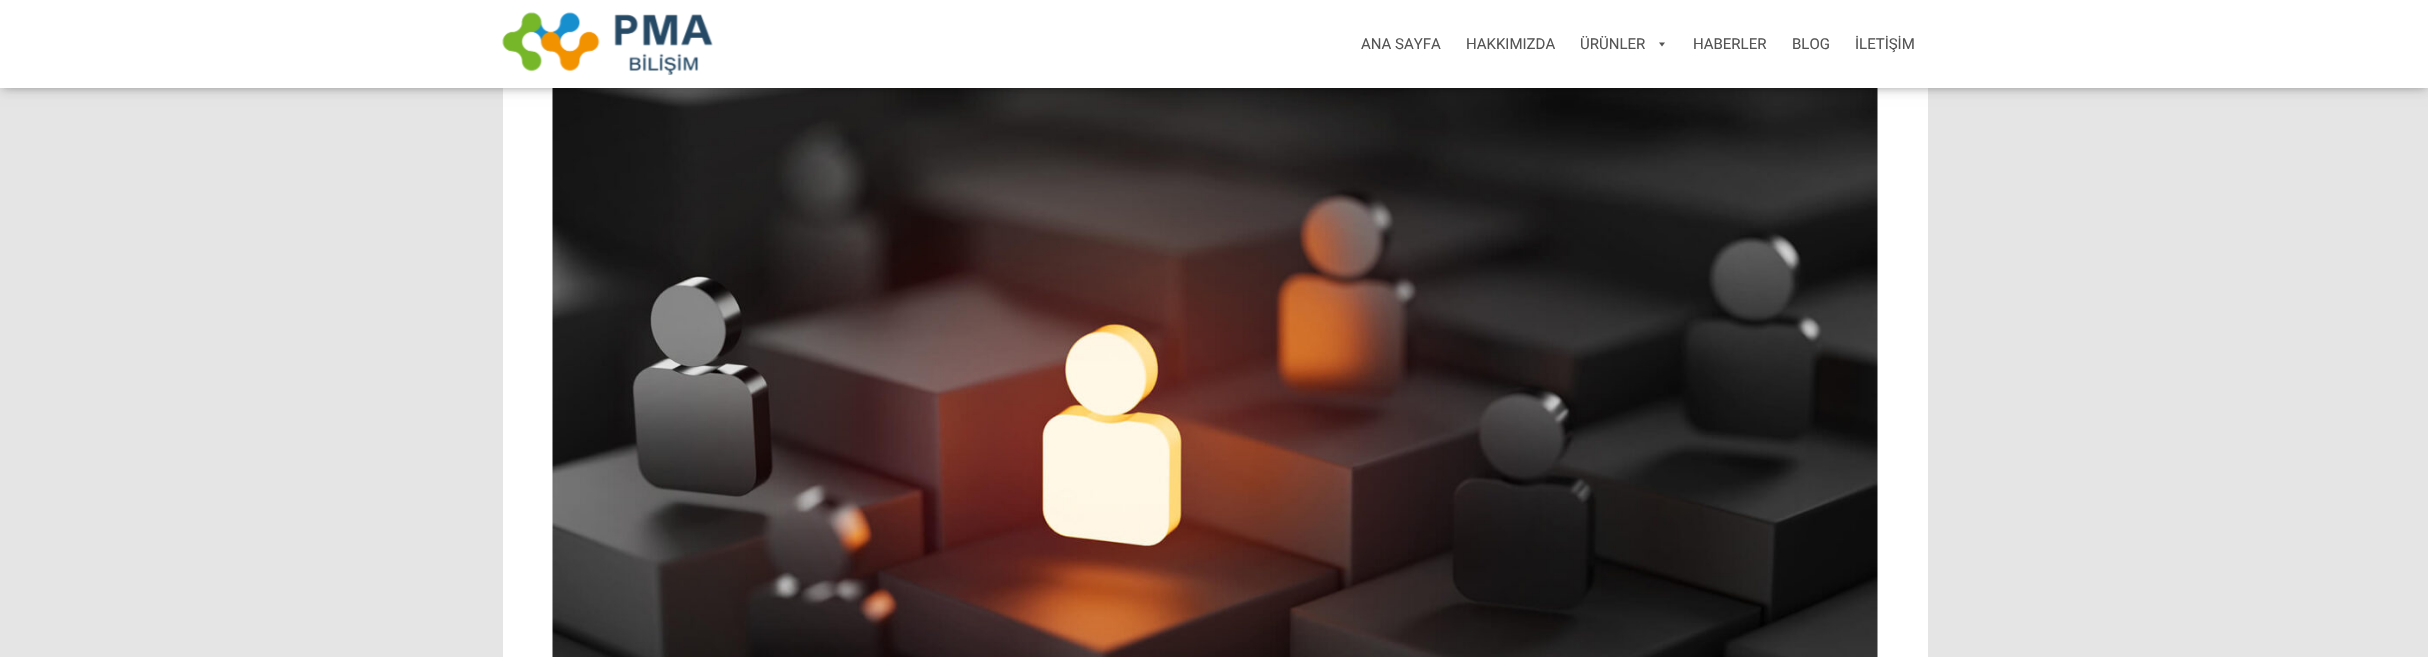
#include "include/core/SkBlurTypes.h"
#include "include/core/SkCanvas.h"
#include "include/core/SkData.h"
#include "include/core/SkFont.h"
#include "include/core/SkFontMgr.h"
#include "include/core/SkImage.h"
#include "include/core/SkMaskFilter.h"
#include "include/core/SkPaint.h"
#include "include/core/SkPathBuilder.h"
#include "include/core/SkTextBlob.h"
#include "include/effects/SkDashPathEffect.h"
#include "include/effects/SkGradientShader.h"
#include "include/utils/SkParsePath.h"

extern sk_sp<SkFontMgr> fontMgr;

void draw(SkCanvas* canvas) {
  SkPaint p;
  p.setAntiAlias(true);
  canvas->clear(SkColorSetRGB(229, 229, 229));
  p.setColor(SK_ColorWHITE);
  canvas->drawRect(SkRect::MakeLTRB(503, 88, 1928, 657), p);
  canvas->drawImageRect(SkImages::DeferredFromEncodedData(SkData::MakeFromFileName("images/2.png")), SkRect::MakeLTRB(552, 88, 1878, 657), SkSamplingOptions());
  p.setColor(SkColorSetARGB(26, 0, 0, 0));
  p.setMaskFilter(SkMaskFilter::MakeBlur(kNormal_SkBlurStyle, 3));
  canvas->drawRect(SkRect::MakeLTRB(3, 8, 2426, 90), p);
  p.setMaskFilter(nullptr);
  p.setColor(SkColorSetARGB(31, 0, 0, 0));
  p.setMaskFilter(SkMaskFilter::MakeBlur(kNormal_SkBlurStyle, 6));
  canvas->drawRect(SkRect::MakeLTRB(0, 1, 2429, 89), p);
  p.setMaskFilter(nullptr);
  p.setColor(SkColorSetARGB(107, 0, 0, 0));
  p.setMaskFilter(SkMaskFilter::MakeBlur(kNormal_SkBlurStyle, 6));
  canvas->drawRect(SkRect::MakeLTRB(8, 9, 2421, 81), p);
  p.setMaskFilter(nullptr);
  p.setColor(SK_ColorWHITE);
  canvas->drawRect(SkRect::MakeLTRB(0, 0, 2428, 88), p);
  canvas->drawImageRect(SkImages::DeferredFromEncodedData(SkData::MakeFromFileName("images/1.png")), SkRect::MakeLTRB(502, 12, 713, 75), SkSamplingOptions());
  p.setColor(SkColorSetRGB(85, 85, 85));
  canvas->drawPath(SkPathBuilder().moveTo(1665, 42.5f).lineTo(1662, 46.5f).lineTo(1659, 42.5f).close().detach(), p);
  SkFont font1(fontMgr->matchFamilyStyle("Roboto", SkFontStyle::Normal()), 15);
  font1.setSubpixel(true);
  canvas->drawString("ANA SAYFA", 1361, 49, font1, p);
  canvas->drawString("HAKKIMIZDA", 1466, 49, font1, p);
  canvas->drawString("ÜRÜNLER", 1580, 49, font1, p);
  canvas->drawString("HABERLER", 1693, 49, font1, p);
  canvas->drawString("BLOG", 1792, 49, font1, p);
  canvas->drawString("İLETİŞİM", 1855, 49, font1, p);
}
